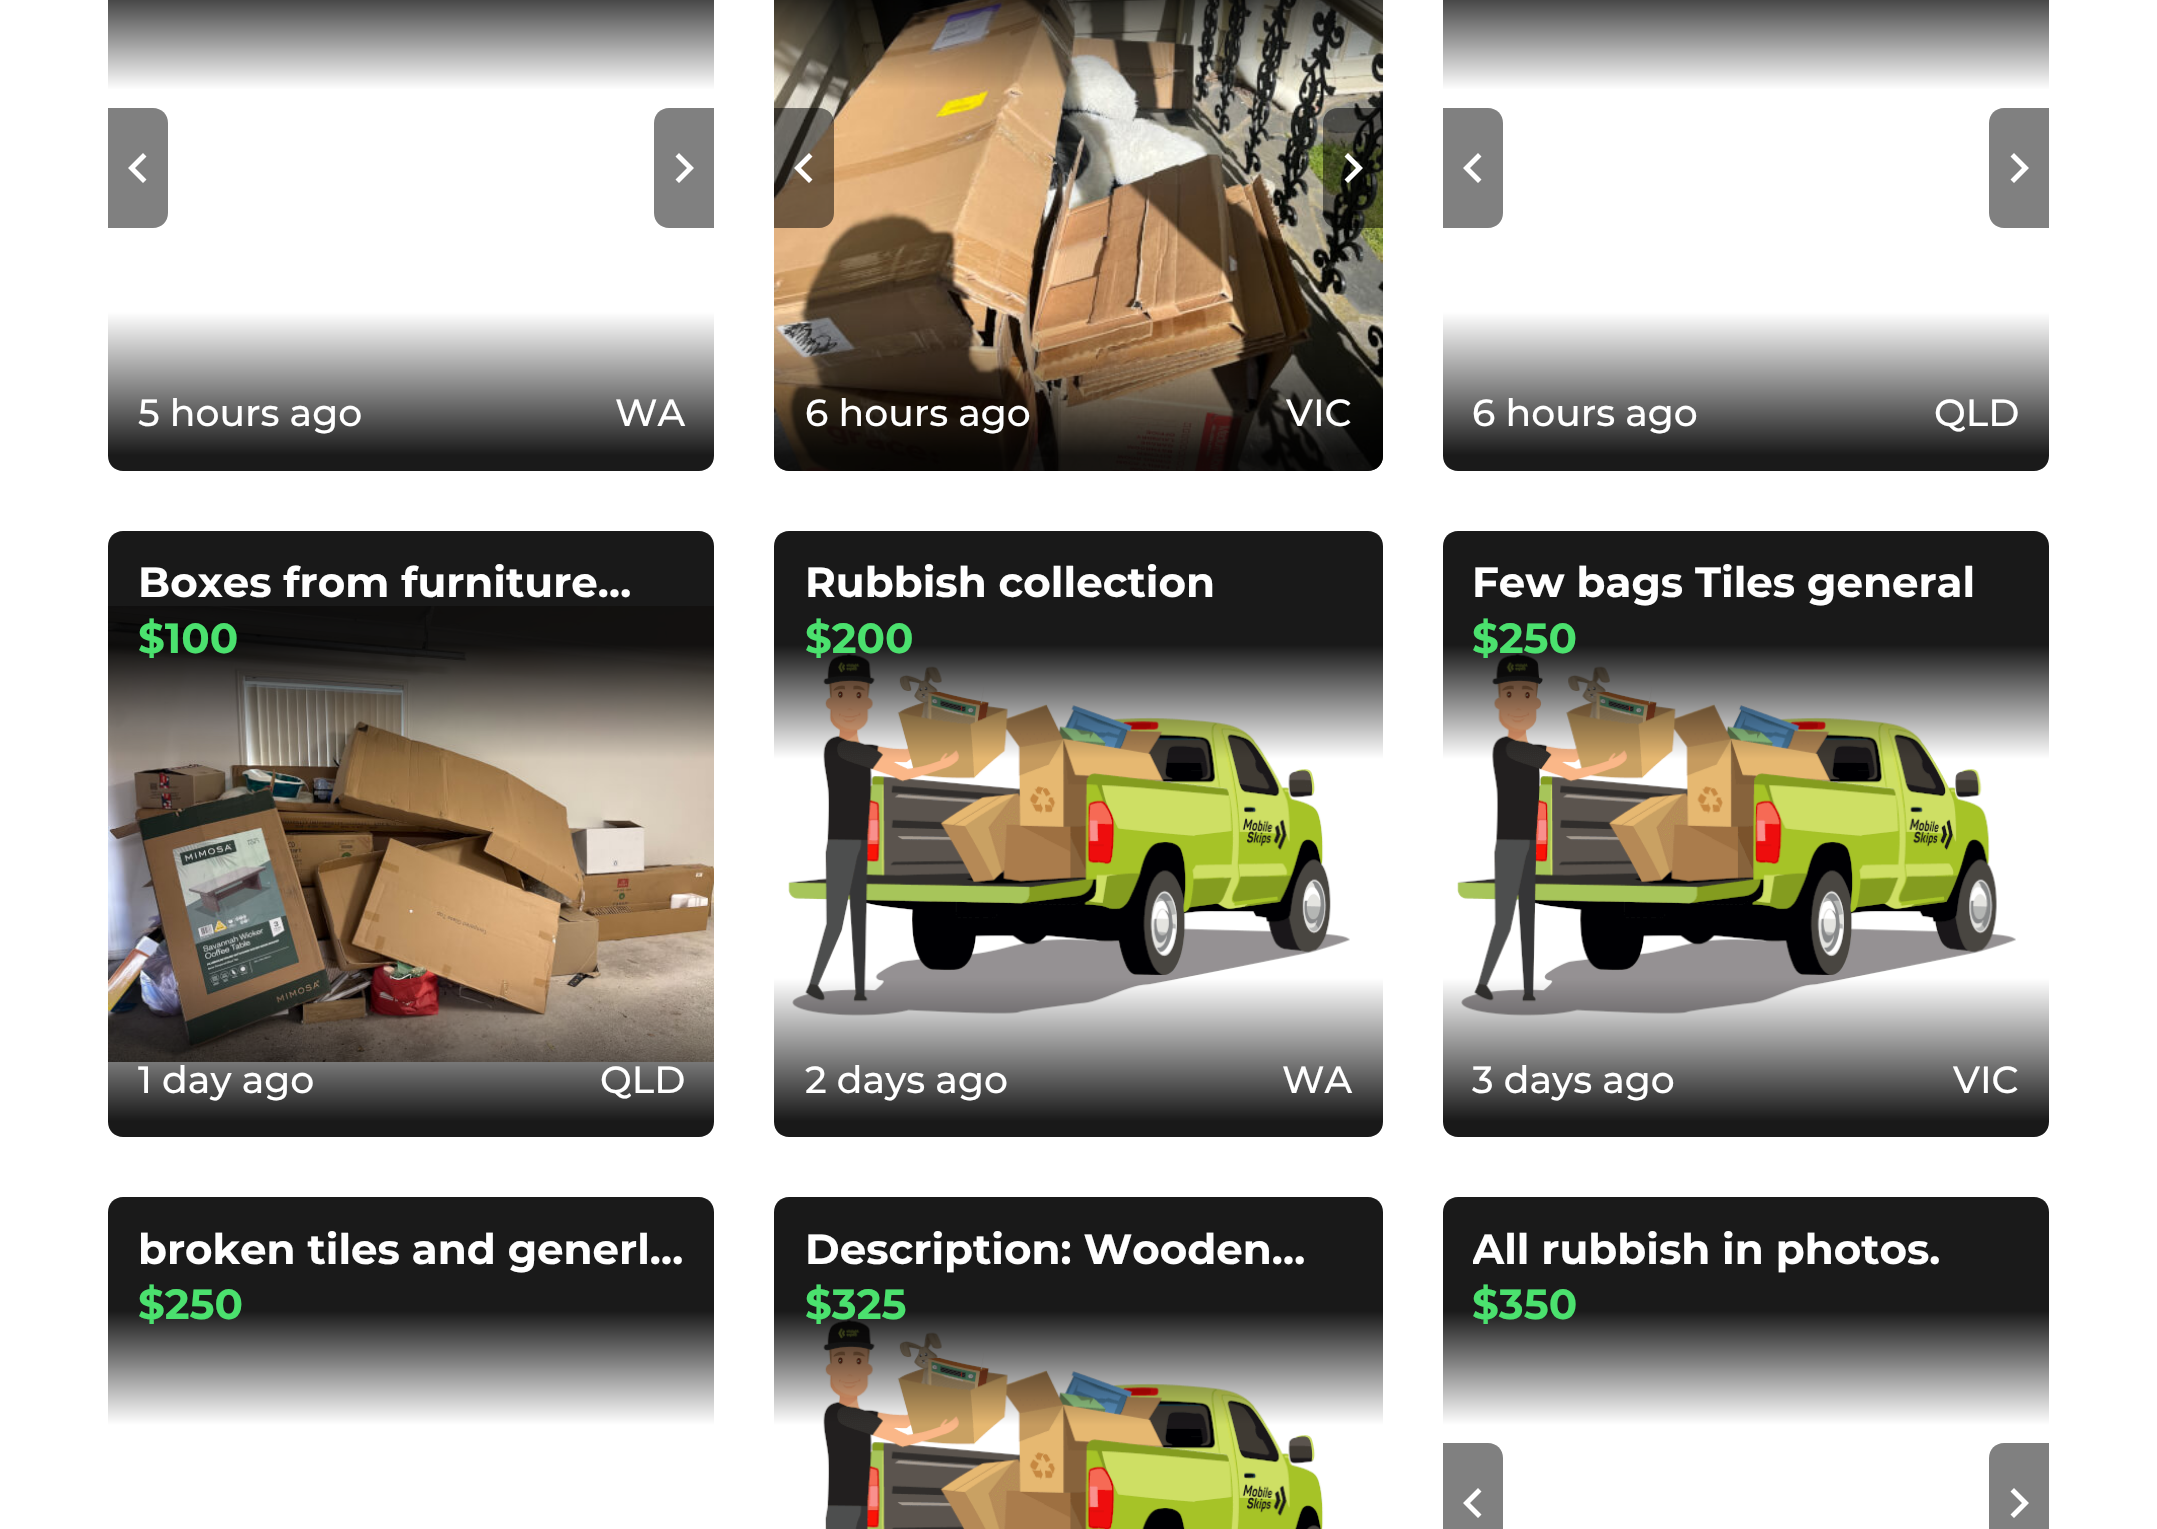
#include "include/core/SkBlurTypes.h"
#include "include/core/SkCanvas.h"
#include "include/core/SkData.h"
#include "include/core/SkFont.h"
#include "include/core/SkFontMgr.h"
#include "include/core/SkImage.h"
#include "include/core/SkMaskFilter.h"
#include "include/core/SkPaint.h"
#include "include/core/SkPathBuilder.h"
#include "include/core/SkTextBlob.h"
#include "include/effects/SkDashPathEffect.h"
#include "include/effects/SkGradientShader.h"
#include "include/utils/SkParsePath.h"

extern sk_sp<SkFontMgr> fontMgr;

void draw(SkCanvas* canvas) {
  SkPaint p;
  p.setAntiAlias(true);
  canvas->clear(SK_ColorWHITE);
  {
    const SkColor colors[] = {SkColorSetRGB(26, 26, 26), SK_ColorWHITE};
    const float stops[] = {0.5f, 1};
    const SkPoint ends[] = {{411, -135}, {411, 90}};
    p.setShader(SkGradientShader::MakeLinear(ends, colors, stops, 2, SkTileMode::kClamp));
    p.setAlpha(255);
  }
  canvas->drawRect(SkRect::MakeLTRB(108, 0, 714, 89), p);
  p.setShader(nullptr);
  p.setColor(SkColorSetRGB(128, 128, 128));
  canvas->drawPath(SkPathBuilder().moveTo(108, 108).lineTo(153, 108).cubicTo(161.5f, 108, 168, 114.5f, 168, 123).lineTo(168, 213).cubicTo(168, 221.5f, 161.5f, 228, 153, 228).lineTo(108, 228).close().detach(), p);
  p.setColor(SK_ColorWHITE);
  canvas->drawPath(SkPathBuilder().moveTo(146.5f, 156.5f).lineTo(143, 153).lineTo(128, 168).lineTo(143, 183).lineTo(146.5f, 179.5f).lineTo(135, 168).close().detach(), p);
  p.setColor(SkColorSetRGB(128, 128, 128));
  canvas->drawPath(SkPathBuilder().moveTo(669, 108).lineTo(714, 108).lineTo(714, 228).lineTo(669, 228).cubicTo(660.5f, 228, 654, 221.5f, 654, 213).lineTo(654, 123).cubicTo(654, 114.5f, 660.5f, 108, 669, 108).close().detach(), p);
  p.setColor(SK_ColorWHITE);
  canvas->drawPath(SkPathBuilder().moveTo(679, 153).lineTo(675.5f, 156.5f).lineTo(687, 168).lineTo(675.5f, 179.5f).lineTo(679, 183).lineTo(694, 168).close().detach(), p);
  {
    const SkColor colors[] = {SkColorSetRGB(26, 26, 26), SK_ColorWHITE};
    const float stops[] = {0.1f, 1};
    const SkPoint ends[] = {{411, 471}, {411, 312}};
    p.setShader(SkGradientShader::MakeLinear(ends, colors, stops, 2, SkTileMode::kClamp));
    p.setAlpha(255);
  }
  canvas->drawPath(SkPathBuilder().moveTo(108, 312).lineTo(714, 312).lineTo(714, 456).cubicTo(714, 464.5f, 707.5f, 471, 699, 471).lineTo(123, 471).cubicTo(114.5f, 471, 108, 464.5f, 108, 456).close().detach(), p);
  canvas->drawImageRect(SkImages::DeferredFromEncodedData(SkData::MakeFromFileName("images/1.png")), SkRect::MakeLTRB(774, 0, 1383, 471), SkSamplingOptions());
  p.setShader(nullptr);
  p.setColor(SkColorSetARGB(128, 0, 0, 0));
  canvas->drawPath(SkPathBuilder().moveTo(774, 108).lineTo(819, 108).cubicTo(827.5f, 108, 834, 114.5f, 834, 123).lineTo(834, 213).cubicTo(834, 221.5f, 827.5f, 228, 819, 228).lineTo(774, 228).close().detach(), p);
  p.setColor(SK_ColorWHITE);
  canvas->drawPath(SkPathBuilder().moveTo(812.5f, 156.5f).lineTo(809, 153).lineTo(794, 168).lineTo(809, 183).lineTo(812.5f, 179.5f).lineTo(801, 168).close().detach(), p);
  p.setColor(SkColorSetARGB(128, 0, 0, 0));
  canvas->drawPath(SkPathBuilder().moveTo(1338, 108).lineTo(1383, 108).lineTo(1383, 228).lineTo(1338, 228).cubicTo(1329.5f, 228, 1323, 221.5f, 1323, 213).lineTo(1323, 123).cubicTo(1323, 114.5f, 1329.5f, 108, 1338, 108).close().detach(), p);
  p.setColor(SK_ColorWHITE);
  canvas->drawPath(SkPathBuilder().moveTo(1348, 153).lineTo(1344.5f, 156.5f).lineTo(1356, 168).lineTo(1344.5f, 179.5f).lineTo(1348, 183).lineTo(1363, 168).close().detach(), p);
  {
    const SkColor colors[] = {SkColorSetARGB(230, 0, 0, 0), SkColorSetARGB(0, 0, 0, 0)};
    const float stops[] = {0.1f, 1};
    const SkPoint ends[] = {{1079, 471}, {1079, 312}};
    p.setShader(SkGradientShader::MakeLinear(ends, colors, stops, 2, SkTileMode::kClamp));
    p.setAlpha(255);
  }
  canvas->drawPath(SkPathBuilder().moveTo(774, 312).lineTo(1383, 312).lineTo(1383, 456).cubicTo(1383, 464.5f, 1376.5f, 471, 1368, 471).lineTo(789, 471).cubicTo(780.5f, 471, 774, 464.5f, 774, 456).close().detach(), p);
  {
    const SkColor colors[] = {SkColorSetRGB(26, 26, 26), SK_ColorWHITE};
    const float stops[] = {0.5f, 1};
    const SkPoint ends[] = {{1746, -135}, {1746, 90}};
    p.setShader(SkGradientShader::MakeLinear(ends, colors, stops, 2, SkTileMode::kClamp));
    p.setAlpha(255);
  }
  canvas->drawRect(SkRect::MakeLTRB(1443, 0, 2049, 89), p);
  p.setShader(nullptr);
  p.setColor(SkColorSetRGB(128, 128, 128));
  canvas->drawPath(SkPathBuilder().moveTo(1443, 108).lineTo(1488, 108).cubicTo(1496.5f, 108, 1503, 114.5f, 1503, 123).lineTo(1503, 213).cubicTo(1503, 221.5f, 1496.5f, 228, 1488, 228).lineTo(1443, 228).close().detach(), p);
  p.setColor(SK_ColorWHITE);
  canvas->drawPath(SkPathBuilder().moveTo(1481.5f, 156.5f).lineTo(1478, 153).lineTo(1463, 168).lineTo(1478, 183).lineTo(1481.5f, 179.5f).lineTo(1470, 168).close().detach(), p);
  p.setColor(SkColorSetRGB(128, 128, 128));
  canvas->drawPath(SkPathBuilder().moveTo(2004, 108).lineTo(2049, 108).lineTo(2049, 228).lineTo(2004, 228).cubicTo(1995.5f, 228, 1989, 221.5f, 1989, 213).lineTo(1989, 123).cubicTo(1989, 114.5f, 1995.5f, 108, 2004, 108).close().detach(), p);
  p.setColor(SK_ColorWHITE);
  canvas->drawPath(SkPathBuilder().moveTo(2014, 153).lineTo(2010.5f, 156.5f).lineTo(2022, 168).lineTo(2010.5f, 179.5f).lineTo(2014, 183).lineTo(2029, 168).close().detach(), p);
  {
    const SkColor colors[] = {SkColorSetRGB(26, 26, 26), SK_ColorWHITE};
    const float stops[] = {0.1f, 1};
    const SkPoint ends[] = {{1746, 471}, {1746, 312}};
    p.setShader(SkGradientShader::MakeLinear(ends, colors, stops, 2, SkTileMode::kClamp));
    p.setAlpha(255);
  }
  canvas->drawPath(SkPathBuilder().moveTo(1443, 312).lineTo(2049, 312).lineTo(2049, 456).cubicTo(2049, 464.5f, 2042.5f, 471, 2034, 471).lineTo(1458, 471).cubicTo(1449.5f, 471, 1443, 464.5f, 1443, 456).close().detach(), p);
  canvas->drawImageRect(SkImages::DeferredFromEncodedData(SkData::MakeFromFileName("images/2.png")), SkRect::MakeLTRB(108, 606, 714, 1062), SkSamplingOptions());
  {
    const SkColor colors[] = {SkColorSetARGB(230, 0, 0, 0), SkColorSetARGB(0, 0, 0, 0)};
    const float stops[] = {0.5f, 1};
    const SkPoint ends[] = {{411, 531}, {411, 759}};
    p.setShader(SkGradientShader::MakeLinear(ends, colors, stops, 2, SkTileMode::kClamp));
    p.setAlpha(255);
  }
  canvas->drawPath(SkPathBuilder().moveTo(123, 531).lineTo(699, 531).cubicTo(707.5f, 531, 714, 537.5f, 714, 546).lineTo(714, 759).lineTo(108, 759).lineTo(108, 546).cubicTo(108, 537.5f, 114.5f, 531, 123, 531).close().detach(), p);
  {
    const SkColor colors[] = {SkColorSetARGB(230, 0, 0, 0), SkColorSetARGB(0, 0, 0, 0)};
    const float stops[] = {0.1f, 1};
    const SkPoint ends[] = {{411, 1137}, {411, 978}};
    p.setShader(SkGradientShader::MakeLinear(ends, colors, stops, 2, SkTileMode::kClamp));
    p.setAlpha(255);
  }
  canvas->drawPath(SkPathBuilder().moveTo(108, 978).lineTo(714, 978).lineTo(714, 1122).cubicTo(714, 1130.5f, 707.5f, 1137, 699, 1137).lineTo(123, 1137).cubicTo(114.5f, 1137, 108, 1130.5f, 108, 1122).close().detach(), p);
  canvas->drawImageRect(SkImages::DeferredFromEncodedData(SkData::MakeFromFileName("images/3.png")), SkRect::MakeLTRB(788, 653, 1350, 1016), SkSamplingOptions());
  {
    const SkColor colors[] = {SkColorSetARGB(230, 0, 0, 0), SkColorSetARGB(0, 0, 0, 0)};
    const float stops[] = {0.5f, 1};
    const SkPoint ends[] = {{1079, 531}, {1079, 759}};
    p.setShader(SkGradientShader::MakeLinear(ends, colors, stops, 2, SkTileMode::kClamp));
    p.setAlpha(255);
  }
  canvas->drawPath(SkPathBuilder().moveTo(789, 531).lineTo(1368, 531).cubicTo(1376.5f, 531, 1383, 537.5f, 1383, 546).lineTo(1383, 759).lineTo(774, 759).lineTo(774, 546).cubicTo(774, 537.5f, 780.5f, 531, 789, 531).close().detach(), p);
  {
    const SkColor colors[] = {SkColorSetARGB(230, 0, 0, 0), SkColorSetARGB(0, 0, 0, 0)};
    const float stops[] = {0.1f, 1};
    const SkPoint ends[] = {{1079, 1137}, {1079, 978}};
    p.setShader(SkGradientShader::MakeLinear(ends, colors, stops, 2, SkTileMode::kClamp));
    p.setAlpha(255);
  }
  canvas->drawPath(SkPathBuilder().moveTo(774, 978).lineTo(1383, 978).lineTo(1383, 1122).cubicTo(1383, 1130.5f, 1376.5f, 1137, 1368, 1137).lineTo(789, 1137).cubicTo(780.5f, 1137, 774, 1130.5f, 774, 1122).close().detach(), p);
  canvas->drawImageRect(SkImages::DeferredFromEncodedData(SkData::MakeFromFileName("images/4.png")), SkRect::MakeLTRB(1457, 653, 2016, 1016), SkSamplingOptions());
  {
    const SkColor colors[] = {SkColorSetARGB(230, 0, 0, 0), SkColorSetARGB(0, 0, 0, 0)};
    const float stops[] = {0.5f, 1};
    const SkPoint ends[] = {{1746, 531}, {1746, 759}};
    p.setShader(SkGradientShader::MakeLinear(ends, colors, stops, 2, SkTileMode::kClamp));
    p.setAlpha(255);
  }
  canvas->drawPath(SkPathBuilder().moveTo(1458, 531).lineTo(2034, 531).cubicTo(2042.5f, 531, 2049, 537.5f, 2049, 546).lineTo(2049, 759).lineTo(1443, 759).lineTo(1443, 546).cubicTo(1443, 537.5f, 1449.5f, 531, 1458, 531).close().detach(), p);
  {
    const SkColor colors[] = {SkColorSetARGB(230, 0, 0, 0), SkColorSetARGB(0, 0, 0, 0)};
    const float stops[] = {0.1f, 1};
    const SkPoint ends[] = {{1746, 1137}, {1746, 978}};
    p.setShader(SkGradientShader::MakeLinear(ends, colors, stops, 2, SkTileMode::kClamp));
    p.setAlpha(255);
  }
  canvas->drawPath(SkPathBuilder().moveTo(1443, 978).lineTo(2049, 978).lineTo(2049, 1122).cubicTo(2049, 1130.5f, 2042.5f, 1137, 2034, 1137).lineTo(1458, 1137).cubicTo(1449.5f, 1137, 1443, 1130.5f, 1443, 1122).close().detach(), p);
  {
    const SkColor colors[] = {SkColorSetRGB(26, 26, 26), SK_ColorWHITE};
    const float stops[] = {0.5f, 1};
    const SkPoint ends[] = {{411, 1197}, {411, 1425}};
    p.setShader(SkGradientShader::MakeLinear(ends, colors, stops, 2, SkTileMode::kClamp));
    p.setAlpha(255);
  }
  canvas->drawPath(SkPathBuilder().moveTo(123, 1197).lineTo(699, 1197).cubicTo(707.5f, 1197, 714, 1203.5f, 714, 1212).lineTo(714, 1425).lineTo(108, 1425).lineTo(108, 1212).cubicTo(108, 1203.5f, 114.5f, 1197, 123, 1197).close().detach(), p);
  canvas->drawImageRect(SkImages::DeferredFromEncodedData(SkData::MakeFromFileName("images/5.png")), SkRect::MakeLTRB(823, 1319, 1324, 1529), SkSamplingOptions());
  {
    const SkColor colors[] = {SkColorSetARGB(230, 0, 0, 0), SkColorSetARGB(0, 0, 0, 0)};
    const float stops[] = {0.5f, 1};
    const SkPoint ends[] = {{1079, 1197}, {1079, 1425}};
    p.setShader(SkGradientShader::MakeLinear(ends, colors, stops, 2, SkTileMode::kClamp));
    p.setAlpha(255);
  }
  canvas->drawPath(SkPathBuilder().moveTo(789, 1197).lineTo(1368, 1197).cubicTo(1376.5f, 1197, 1383, 1203.5f, 1383, 1212).lineTo(1383, 1425).lineTo(774, 1425).lineTo(774, 1212).cubicTo(774, 1203.5f, 780.5f, 1197, 789, 1197).close().detach(), p);
  {
    const SkColor colors[] = {SkColorSetRGB(26, 26, 26), SK_ColorWHITE};
    const float stops[] = {0.5f, 1};
    const SkPoint ends[] = {{1746, 1197}, {1746, 1425}};
    p.setShader(SkGradientShader::MakeLinear(ends, colors, stops, 2, SkTileMode::kClamp));
    p.setAlpha(255);
  }
  canvas->drawPath(SkPathBuilder().moveTo(1458, 1197).lineTo(2034, 1197).cubicTo(2042.5f, 1197, 2049, 1203.5f, 2049, 1212).lineTo(2049, 1425).lineTo(1443, 1425).lineTo(1443, 1212).cubicTo(1443, 1203.5f, 1449.5f, 1197, 1458, 1197).close().detach(), p);
  p.setShader(nullptr);
  p.setColor(SkColorSetRGB(128, 128, 128));
  canvas->drawPath(SkPathBuilder().moveTo(1443, 1443).lineTo(1488, 1443).cubicTo(1496.5f, 1443, 1503, 1449.5f, 1503, 1458).lineTo(1503, 1529).cubicTo(1503, 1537.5f, 1496.5f, 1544, 1488, 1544).lineTo(1443, 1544).close().detach(), p);
  p.setColor(SK_ColorWHITE);
  canvas->drawPath(SkPathBuilder().moveTo(1481.5f, 1491.5f).lineTo(1478, 1488).lineTo(1463, 1503).lineTo(1478, 1518).lineTo(1481.5f, 1514.5f).lineTo(1470, 1503).close().detach(), p);
  p.setColor(SkColorSetRGB(128, 128, 128));
  canvas->drawPath(SkPathBuilder().moveTo(2004, 1443).lineTo(2049, 1443).lineTo(2049, 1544).lineTo(2004, 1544).cubicTo(1995.5f, 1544, 1989, 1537.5f, 1989, 1529).lineTo(1989, 1458).cubicTo(1989, 1449.5f, 1995.5f, 1443, 2004, 1443).close().detach(), p);
  p.setColor(SK_ColorWHITE);
  canvas->drawPath(SkPathBuilder().moveTo(2014, 1488).lineTo(2010.5f, 1491.5f).lineTo(2022, 1503).lineTo(2010.5f, 1514.5f).lineTo(2014, 1518).lineTo(2029, 1503).close().detach(), p);
  SkFont font1(fontMgr->matchFamilyStyle("Montserrat", SkFontStyle(500, SkFontStyle::kNormal_Width, SkFontStyle::kUpright_Slant)), 37.75f);
  font1.setSubpixel(true);
  canvas->drawString("5 hours ago", 138, 426, font1, p);
  canvas->drawString("WA", 615, 426, font1, p);
  canvas->drawString("6 hours ago", 805, 426, font1, p);
  canvas->drawString("VIC", 1286, 426, font1, p);
  canvas->drawString("6 hours ago", 1472, 426, font1, p);
  canvas->drawString("QLD", 1934, 426, font1, p);
  SkFont font2(fontMgr->matchFamilyStyle("Montserrat", SkFontStyle::Bold()), 42);
  font2.setSubpixel(true);
  canvas->drawString("Boxes from furniture…", 138, 597, font2, p);
  p.setColor(SkColorSetRGB(75, 225, 110));
  canvas->drawString("$100", 138, 653, font2, p);
  p.setColor(SK_ColorWHITE);
  canvas->drawString("1 day ago", 138, 1093, font1, p);
  canvas->drawString("QLD", 600, 1093, font1, p);
  canvas->drawString("Rubbish collection", 805, 597, font2, p);
  p.setColor(SkColorSetRGB(75, 225, 110));
  canvas->drawString("$200", 805, 653, font2, p);
  p.setColor(SK_ColorWHITE);
  canvas->drawString("2 days ago", 805, 1093, font1, p);
  canvas->drawString("WA", 1282, 1093, font1, p);
  canvas->drawString("Few bags Tiles general", 1472, 597, font2, p);
  p.setColor(SkColorSetRGB(75, 225, 110));
  canvas->drawString("$250", 1472, 653, font2, p);
  p.setColor(SK_ColorWHITE);
  canvas->drawString("3 days ago", 1472, 1093, font1, p);
  canvas->drawString("VIC", 1953, 1093, font1, p);
  canvas->drawString("broken tiles and generl…", 138, 1264, font2, p);
  p.setColor(SkColorSetRGB(75, 225, 110));
  canvas->drawString("$250", 138, 1319, font2, p);
  p.setColor(SK_ColorWHITE);
  canvas->drawString("Description: Wooden…", 805, 1264, font2, p);
  p.setColor(SkColorSetRGB(75, 225, 110));
  canvas->drawString("$325", 805, 1319, font2, p);
  canvas->save();
  canvas->clipRect(SkRect::MakeLTRB(1473, 1227, 2019, 1275));
  p.setColor(SK_ColorWHITE);
  canvas->drawString("All rubbish in photos.", 1472, 1264, font2, p);
  canvas->restore();
  p.setColor(SkColorSetRGB(75, 225, 110));
  canvas->drawString("$350", 1472, 1319, font2, p);
}
